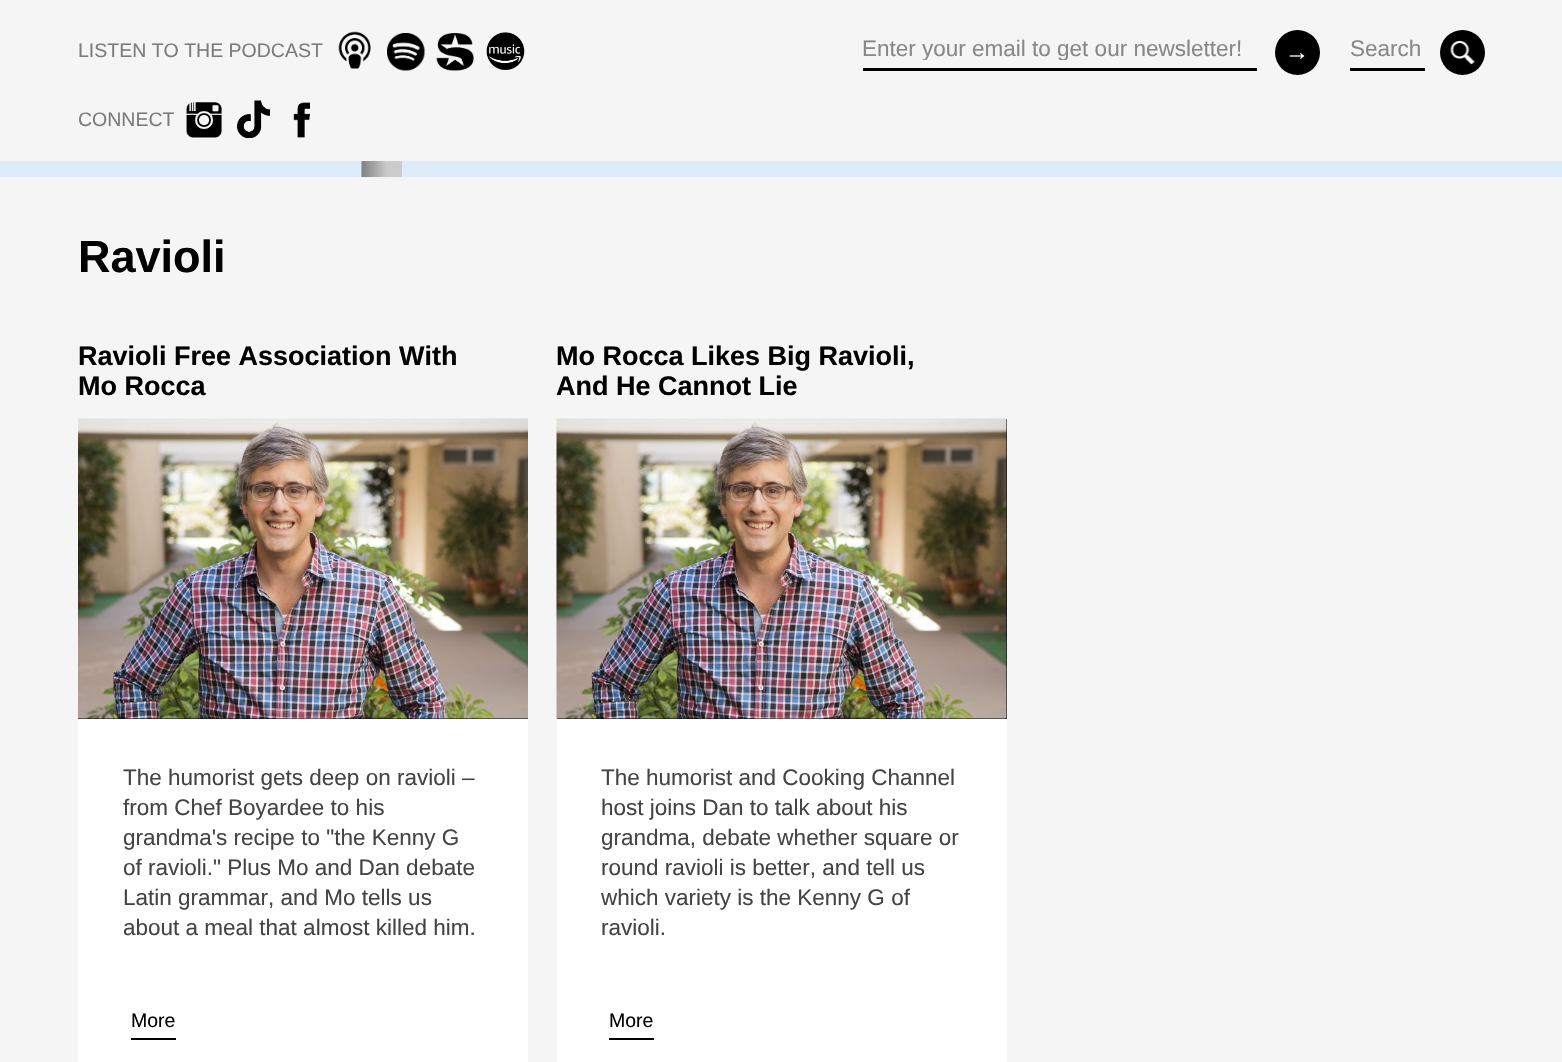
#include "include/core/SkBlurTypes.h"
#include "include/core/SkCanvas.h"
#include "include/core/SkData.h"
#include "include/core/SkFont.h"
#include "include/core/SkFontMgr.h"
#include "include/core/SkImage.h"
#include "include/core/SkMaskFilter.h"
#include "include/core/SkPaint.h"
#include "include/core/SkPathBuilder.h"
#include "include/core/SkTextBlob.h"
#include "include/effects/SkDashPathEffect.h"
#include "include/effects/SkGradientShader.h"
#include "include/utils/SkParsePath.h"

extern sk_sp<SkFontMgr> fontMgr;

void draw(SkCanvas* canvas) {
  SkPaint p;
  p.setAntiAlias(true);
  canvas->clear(SkColorSetRGB(245, 245, 245));
  canvas->drawImageRect(SkImages::DeferredFromEncodedData(SkData::MakeFromFileName("images/1.png")), SkRect::MakeLTRB(338, 31, 371, 69), SkSamplingOptions());
  canvas->drawImageRect(SkImages::DeferredFromEncodedData(SkData::MakeFromFileName("images/2.png")), SkRect::MakeLTRB(387, 33, 425, 71), SkSamplingOptions());
  canvas->drawImageRect(SkImages::DeferredFromEncodedData(SkData::MakeFromFileName("images/3.png")), SkRect::MakeLTRB(436, 33, 474, 71), SkSamplingOptions());
  canvas->drawImageRect(SkImages::DeferredFromEncodedData(SkData::MakeFromFileName("images/4.png")), SkRect::MakeLTRB(486, 32, 525, 70), SkSamplingOptions());
  canvas->drawImageRect(SkImages::DeferredFromEncodedData(SkData::MakeFromFileName("images/5.png")), SkRect::MakeLTRB(186, 102, 222, 138), SkSamplingOptions());
  canvas->drawImageRect(SkImages::DeferredFromEncodedData(SkData::MakeFromFileName("images/6.png")), SkRect::MakeLTRB(237, 100, 270, 138), SkSamplingOptions());
  canvas->drawImageRect(SkImages::DeferredFromEncodedData(SkData::MakeFromFileName("images/7.png")), SkRect::MakeLTRB(293, 102, 310, 138), SkSamplingOptions());
  p.setColor(SK_ColorBLACK);
  canvas->drawRect(SkRect::MakeLTRB(863, 68, 1257, 71), p);
  canvas->drawCircle(1297.5f, 52.5f, 22.5f, p);
  canvas->drawRect(SkRect::MakeLTRB(1350, 68, 1425, 71), p);
  canvas->drawCircle(1462.5f, 52.5f, 22.5f, p);
  canvas->drawImageRect(SkImages::DeferredFromEncodedData(SkData::MakeFromFileName("images/8.png")), SkRect::MakeLTRB(1450, 40, 1475, 65), SkSamplingOptions());
  p.setColor(SkColorSetRGB(221, 234, 248));
  canvas->drawRect(SkRect::MakeLTRB(0, 161, 1562, 177), p);
  canvas->drawImageRect(SkImages::DeferredFromEncodedData(SkData::MakeFromFileName("images/9.png")), SkRect::MakeLTRB(361, 161, 402, 177), SkSamplingOptions());
  p.setColor(SK_ColorBLACK);
  canvas->drawRect(SkRect::MakeLTRB(78, 718, 528, 719), p);
  canvas->drawImageRect(SkImages::DeferredFromEncodedData(SkData::MakeFromFileName("images/10.png")), SkRect::MakeLTRB(78, 418, 528, 719), SkSamplingOptions());
  p.setColor(SK_ColorWHITE);
  canvas->drawRect(SkRect::MakeLTRB(78, 719, 528, 1062), p);
  p.setColor(SK_ColorBLACK);
  canvas->drawRect(SkRect::MakeLTRB(131, 1038, 176, 1040), p);
  canvas->drawRect(SkRect::MakeLTRB(557, 419, 1007, 719), p);
  canvas->drawImageRect(SkImages::DeferredFromEncodedData(SkData::MakeFromFileName("images/11.png")), SkRect::MakeLTRB(556, 418, 1007, 719), SkSamplingOptions());
  p.setColor(SK_ColorWHITE);
  canvas->drawRect(SkRect::MakeLTRB(557, 719, 1007, 1062), p);
  p.setColor(SK_ColorBLACK);
  canvas->drawRect(SkRect::MakeLTRB(609, 1038, 654, 1040), p);
  SkFont font1(fontMgr->matchFamilyStyle("Liberation Sans", SkFontStyle::Normal()), 19.5f);
  font1.setSubpixel(true);
  p.setColor(SkColorSetRGB(123, 123, 123));
  canvas->drawString("LISTEN TO THE PODCAST", 78, 57, font1, p);
  canvas->drawString("CONNECT", 78, 126, font1, p);
  canvas->save();
  canvas->clipRect(SkRect::MakeLTRB(863, 35, 1257, 60));
  SkFont font2(fontMgr->matchFamilyStyle("Liberation Sans", SkFontStyle::Normal()), 22.5f);
  font2.setSubpixel(true);
  p.setColor(SkColorSetRGB(136, 136, 136));
  canvas->drawString("Enter your email to get our newsletter!", 862, 56, font2, p);
  canvas->restore();
  SkFont font3(fontMgr->matchFamilyStyle("Liberation Sans", SkFontStyle::Bold()), 24);
  font3.setSubpixel(true);
  p.setColor(SK_ColorWHITE);
  canvas->drawString("→", 1285, 60, font3, p);
  p.setColor(SkColorSetRGB(136, 136, 136));
  canvas->drawString("Search", 1350, 56, font2, p);
  SkFont font4(fontMgr->matchFamilyStyle("Liberation Sans", SkFontStyle::Bold()), 45);
  font4.setSubpixel(true);
  p.setColor(SK_ColorBLACK);
  canvas->drawString("Ravioli", 78, 272, font4, p);
  SkFont font5(fontMgr->matchFamilyStyle("Liberation Sans", SkFontStyle::Bold()), 27);
  font5.setSubpixel(true);
  canvas->drawString("Ravioli Free Association With", 78, 365, font5, p);
  canvas->drawString("Mo Rocca", 78, 395, font5, p);
  p.setColor(SkColorSetRGB(68, 68, 68));
  canvas->drawString("The humorist gets deep on ravioli –", 123, 785, font2, p);
  canvas->drawString("from Chef Boyardee to his", 123, 815, font2, p);
  canvas->drawString("grandma's recipe to \"the Kenny G", 123, 845, font2, p);
  canvas->drawString("of ravioli.\" Plus Mo and Dan debate", 123, 875, font2, p);
  canvas->drawString("Latin grammar, and Mo tells us", 123, 905, font2, p);
  canvas->drawString("about a meal that almost killed him.", 123, 935, font2, p);
  p.setColor(SK_ColorBLACK);
  canvas->drawString("More", 131, 1027, font1, p);
  canvas->drawString("Mo Rocca Likes Big Ravioli,", 556, 365, font5, p);
  canvas->drawString("And He Cannot Lie", 556, 395, font5, p);
  p.setColor(SkColorSetRGB(68, 68, 68));
  canvas->drawString("The humorist and Cooking Channel", 601, 785, font2, p);
  canvas->drawString("host joins Dan to talk about his", 601, 815, font2, p);
  canvas->drawString("grandma, debate whether square or", 601, 845, font2, p);
  canvas->drawString("round ravioli is better, and tell us", 601, 875, font2, p);
  canvas->drawString("which variety is the Kenny G of", 601, 905, font2, p);
  canvas->drawString("ravioli.", 601, 935, font2, p);
  p.setColor(SK_ColorBLACK);
  canvas->drawString("More", 609, 1027, font1, p);
}
